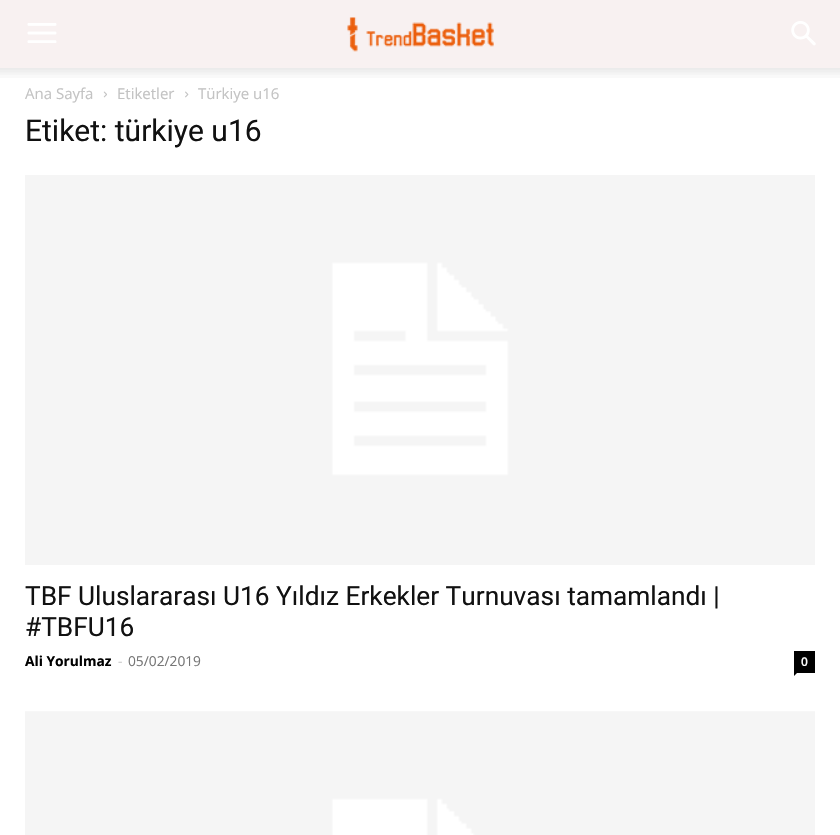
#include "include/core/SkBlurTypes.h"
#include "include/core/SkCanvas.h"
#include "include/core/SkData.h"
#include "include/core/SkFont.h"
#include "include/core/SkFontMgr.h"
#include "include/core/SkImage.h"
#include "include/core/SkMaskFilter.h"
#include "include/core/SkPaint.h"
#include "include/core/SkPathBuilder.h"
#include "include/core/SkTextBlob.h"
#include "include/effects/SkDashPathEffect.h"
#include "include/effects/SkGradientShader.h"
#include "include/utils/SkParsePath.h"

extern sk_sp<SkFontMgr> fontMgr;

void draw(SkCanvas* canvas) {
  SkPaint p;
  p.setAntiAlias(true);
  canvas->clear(SK_ColorWHITE);
  p.setColor(SkColorSetRGB(248, 241, 241));
  canvas->drawRect(SkRect::MakeLTRB(0, 0, 840, 68), p);
  canvas->drawImageRect(SkImages::DeferredFromEncodedData(SkData::MakeFromFileName("images/1.png")), SkRect::MakeLTRB(27, 23, 57, 43), SkSamplingOptions());
  canvas->drawImageRect(SkImages::DeferredFromEncodedData(SkData::MakeFromFileName("images/2.png")), SkRect::MakeLTRB(347, 17, 494, 52), SkSamplingOptions());
  canvas->drawImageRect(SkImages::DeferredFromEncodedData(SkData::MakeFromFileName("images/3.png")), SkRect::MakeLTRB(791, 21, 816, 46), SkSamplingOptions());
  canvas->drawImageRect(SkImages::DeferredFromEncodedData(SkData::MakeFromFileName("images/4.png")), SkRect::MakeLTRB(0, 68, 840, 78), SkSamplingOptions());
  canvas->drawImageRect(SkImages::DeferredFromEncodedData(SkData::MakeFromFileName("images/5.png")), SkRect::MakeLTRB(103, 91, 107, 98), SkSamplingOptions());
  canvas->drawImageRect(SkImages::DeferredFromEncodedData(SkData::MakeFromFileName("images/6.png")), SkRect::MakeLTRB(185, 91, 189, 98), SkSamplingOptions());
  canvas->drawImageRect(SkImages::DeferredFromEncodedData(SkData::MakeFromFileName("images/7.png")), SkRect::MakeLTRB(25, 175, 815, 565), SkSamplingOptions());
  p.setColor(SK_ColorBLACK);
  canvas->drawRect(SkRect::MakeLTRB(794, 651, 815, 673), p);
  canvas->drawPath(SkPathBuilder().moveTo(794, 672.5f).lineTo(797.5f, 672.5f).lineTo(794, 676).close().detach(), p);
  canvas->drawImageRect(SkImages::DeferredFromEncodedData(SkData::MakeFromFileName("images/8.png")), SkRect::MakeLTRB(25, 711, 815, 835), SkSamplingOptions());
  SkFont font1(fontMgr->matchFamilyStyle("Open Sans", SkFontStyle::Normal()), 15);
  font1.setSubpixel(true);
  p.setColor(SkColorSetRGB(195, 195, 195));
  canvas->drawString("Ana Sayfa", 25, 99, font1, p);
  canvas->drawString("Etiketler", 117, 99, font1, p);
  canvas->drawString("Türkiye u16", 198, 99, font1, p);
  SkFont font2(fontMgr->matchFamilyStyle("Roboto", SkFontStyle::Normal()), 30);
  font2.setSubpixel(true);
  p.setColor(SkColorSetRGB(17, 17, 17));
  canvas->drawString("Etiket: türkiye u16", 25, 141, font2, p);
  SkFont font3(fontMgr->matchFamilyStyle("Roboto", SkFontStyle::Normal()), 26.25f);
  font3.setSubpixel(true);
  canvas->drawString("TBF Uluslararası U16 Yıldız Erkekler Turnuvası tamamlandı |", 25, 605, font3, p);
  canvas->drawString("#TBFU16", 25, 636, font3, p);
  SkFont font4(fontMgr->matchFamilyStyle("Open Sans", SkFontStyle::Bold()), 13.75f);
  font4.setSubpixel(true);
  p.setColor(SK_ColorBLACK);
  canvas->drawString("Ali Yorulmaz", 25, 666, font4, p);
  SkFont font5(fontMgr->matchFamilyStyle("Open Sans", SkFontStyle::Normal()), 13.75f);
  font5.setSubpixel(true);
  p.setColor(SkColorSetRGB(204, 204, 204));
  canvas->drawString("-", 118, 666, font5, p);
  p.setColor(SkColorSetRGB(118, 118, 118));
  canvas->drawString("05/02/2019", 128, 666, font5, p);
  SkFont font6(fontMgr->matchFamilyStyle("Open Sans", SkFontStyle(600, SkFontStyle::kNormal_Width, SkFontStyle::kUpright_Slant)), 12);
  font6.setSubpixel(true);
  p.setColor(SK_ColorWHITE);
  canvas->drawString("0", 801, 666, font6, p);
}
